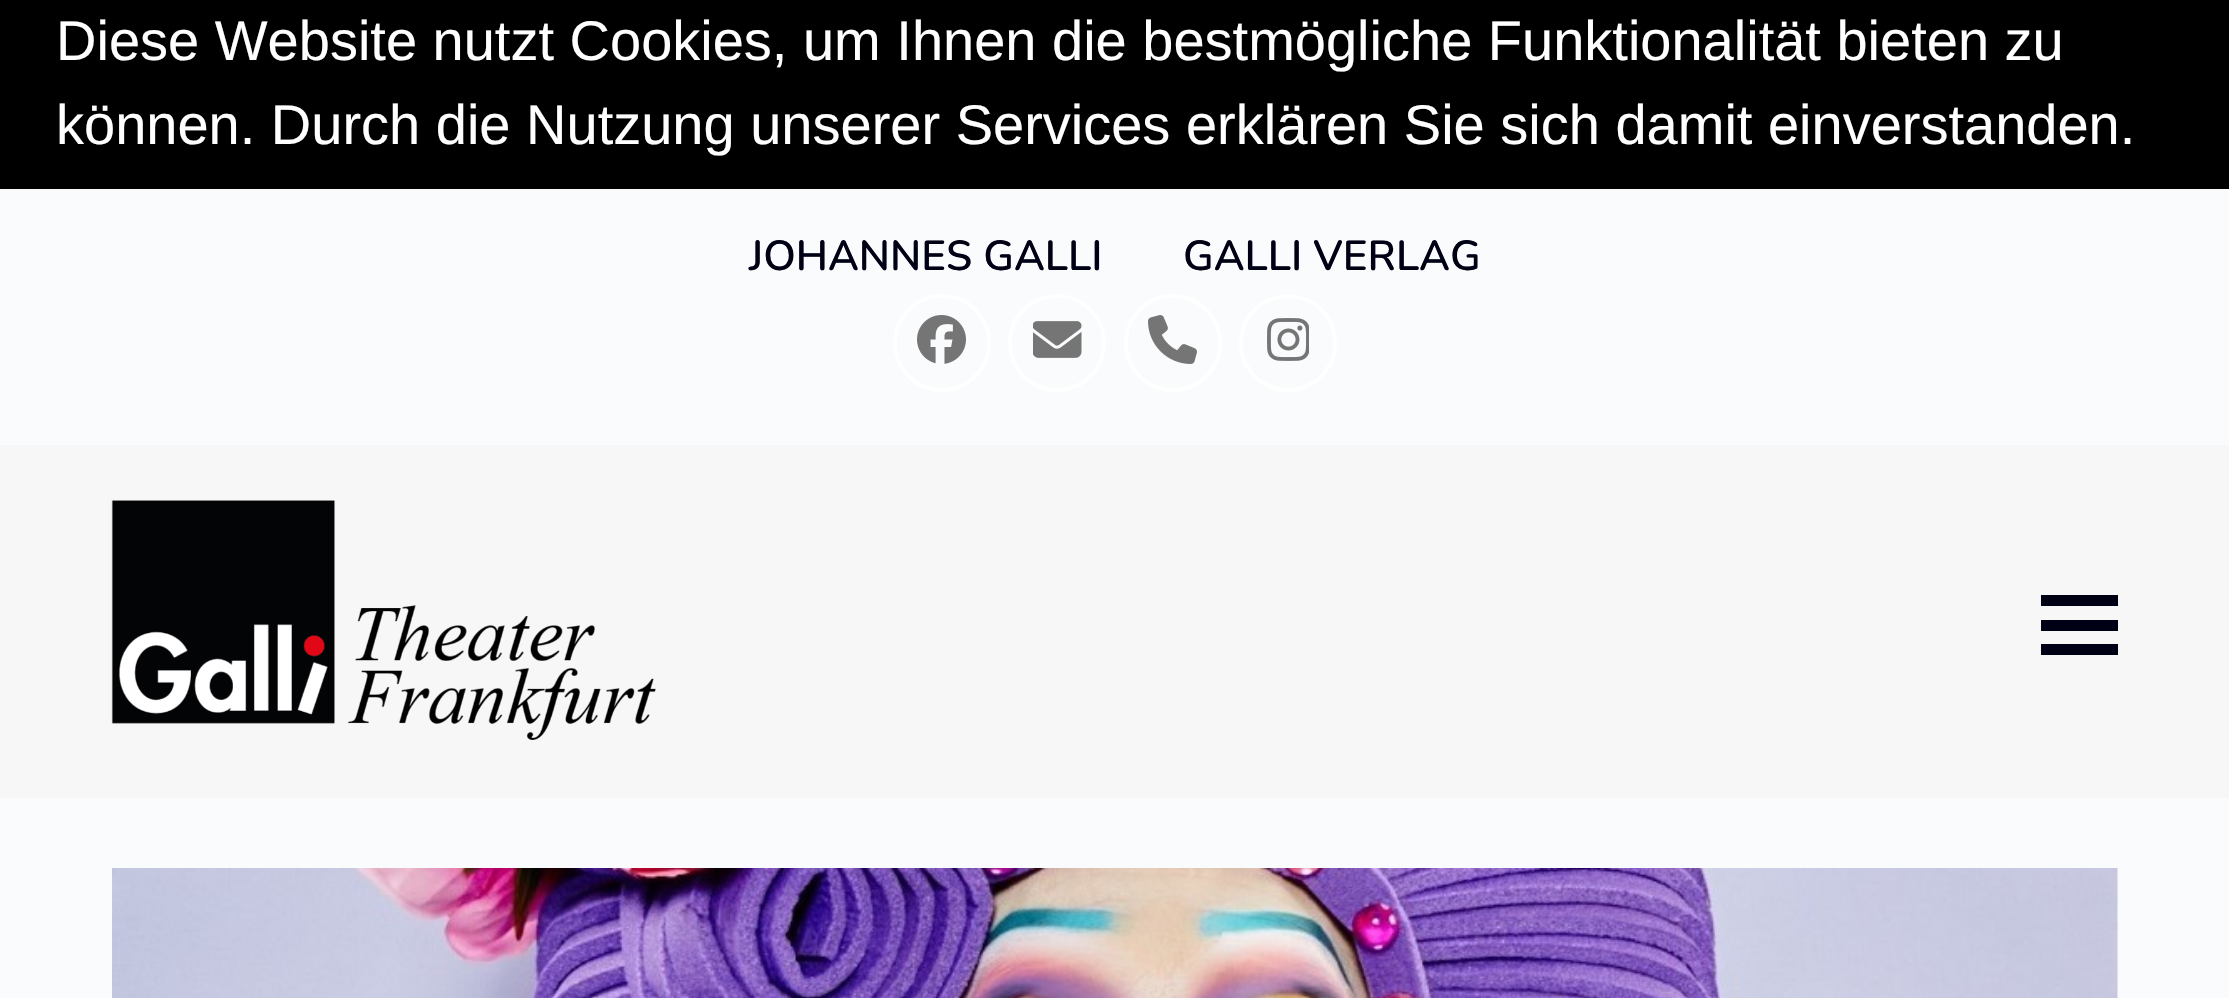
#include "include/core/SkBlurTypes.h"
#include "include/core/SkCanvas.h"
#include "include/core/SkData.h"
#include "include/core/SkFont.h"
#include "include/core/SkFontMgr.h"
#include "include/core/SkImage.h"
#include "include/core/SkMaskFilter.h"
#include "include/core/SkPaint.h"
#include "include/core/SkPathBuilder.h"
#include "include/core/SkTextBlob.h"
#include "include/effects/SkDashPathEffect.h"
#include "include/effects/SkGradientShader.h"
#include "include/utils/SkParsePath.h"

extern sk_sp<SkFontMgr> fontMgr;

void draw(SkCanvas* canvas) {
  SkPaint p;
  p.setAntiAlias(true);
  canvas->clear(SkColorSetRGB(249, 251, 252));
  p.setColor(SK_ColorBLACK);
  canvas->drawRect(SkRect::MakeLTRB(0, 0, 2229, 189), p);
  p.setColor(SkColorSetRGB(247, 247, 247));
  canvas->drawRect(SkRect::MakeLTRB(0, 445, 2229, 798), p);
  p.setStyle(SkPaint::kStroke_Style);
  p.setStrokeWidth(4);
  p.setColor(SK_ColorWHITE);
  canvas->drawCircle(942, 343, 47, p);
  canvas->drawImageRect(SkImages::DeferredFromEncodedData(SkData::MakeFromFileName("images/1.png")), SkRect::MakeLTRB(917, 315, 966, 364), SkSamplingOptions());
  canvas->drawCircle(1057, 343, 47, p);
  canvas->drawImageRect(SkImages::DeferredFromEncodedData(SkData::MakeFromFileName("images/2.png")), SkRect::MakeLTRB(1033, 321, 1082, 358), SkSamplingOptions());
  canvas->drawCircle(1173, 343, 47, p);
  canvas->drawImageRect(SkImages::DeferredFromEncodedData(SkData::MakeFromFileName("images/3.png")), SkRect::MakeLTRB(1148, 315, 1197, 364), SkSamplingOptions());
  canvas->drawCircle(1288, 343, 47, p);
  canvas->drawImageRect(SkImages::DeferredFromEncodedData(SkData::MakeFromFileName("images/4.png")), SkRect::MakeLTRB(1267, 318, 1309, 361), SkSamplingOptions());
  canvas->drawImageRect(SkImages::DeferredFromEncodedData(SkData::MakeFromFileName("images/5.png")), SkRect::MakeLTRB(111, 500, 656, 740), SkSamplingOptions());
  p.setStyle(SkPaint::kFill_Style);
  p.setColor(SkColorSetRGB(0, 0, 21));
  canvas->drawRect(SkRect::MakeLTRB(2041, 620, 2118, 631), p);
  canvas->drawRect(SkRect::MakeLTRB(2041, 595, 2118, 606), p);
  canvas->drawRect(SkRect::MakeLTRB(2041, 644, 2118, 655), p);
  canvas->drawImageRect(SkImages::DeferredFromEncodedData(SkData::MakeFromFileName("images/6.png")), SkRect::MakeLTRB(112, 868, 2118, 998), SkSamplingOptions());
  SkFont font1(fontMgr->matchFamilyStyle("Liberation Sans", SkFontStyle::Normal()), 56);
  font1.setSubpixel(true);
  p.setColor(SK_ColorWHITE);
  canvas->drawString("Diese Website nutzt Cookies, um Ihnen die bestmögliche Funktionalität bieten zu", 56, 60, font1, p);
  canvas->drawString("können. Durch die Nutzung unserer Services erklären Sie sich damit einverstanden.", 56, 144, font1, p);
  SkFont font2(fontMgr->matchFamilyStyle("Nunito", SkFontStyle(200, SkFontStyle::kNormal_Width, SkFontStyle::kUpright_Slant)), 42);
  font2.setSubpixel(true);
  p.setColor(SkColorSetRGB(0, 0, 21));
  canvas->drawString("JOHANNES GALLI", 749, 270, font2, p);
  canvas->drawString("GALLI VERLAG", 1183, 270, font2, p);
}
